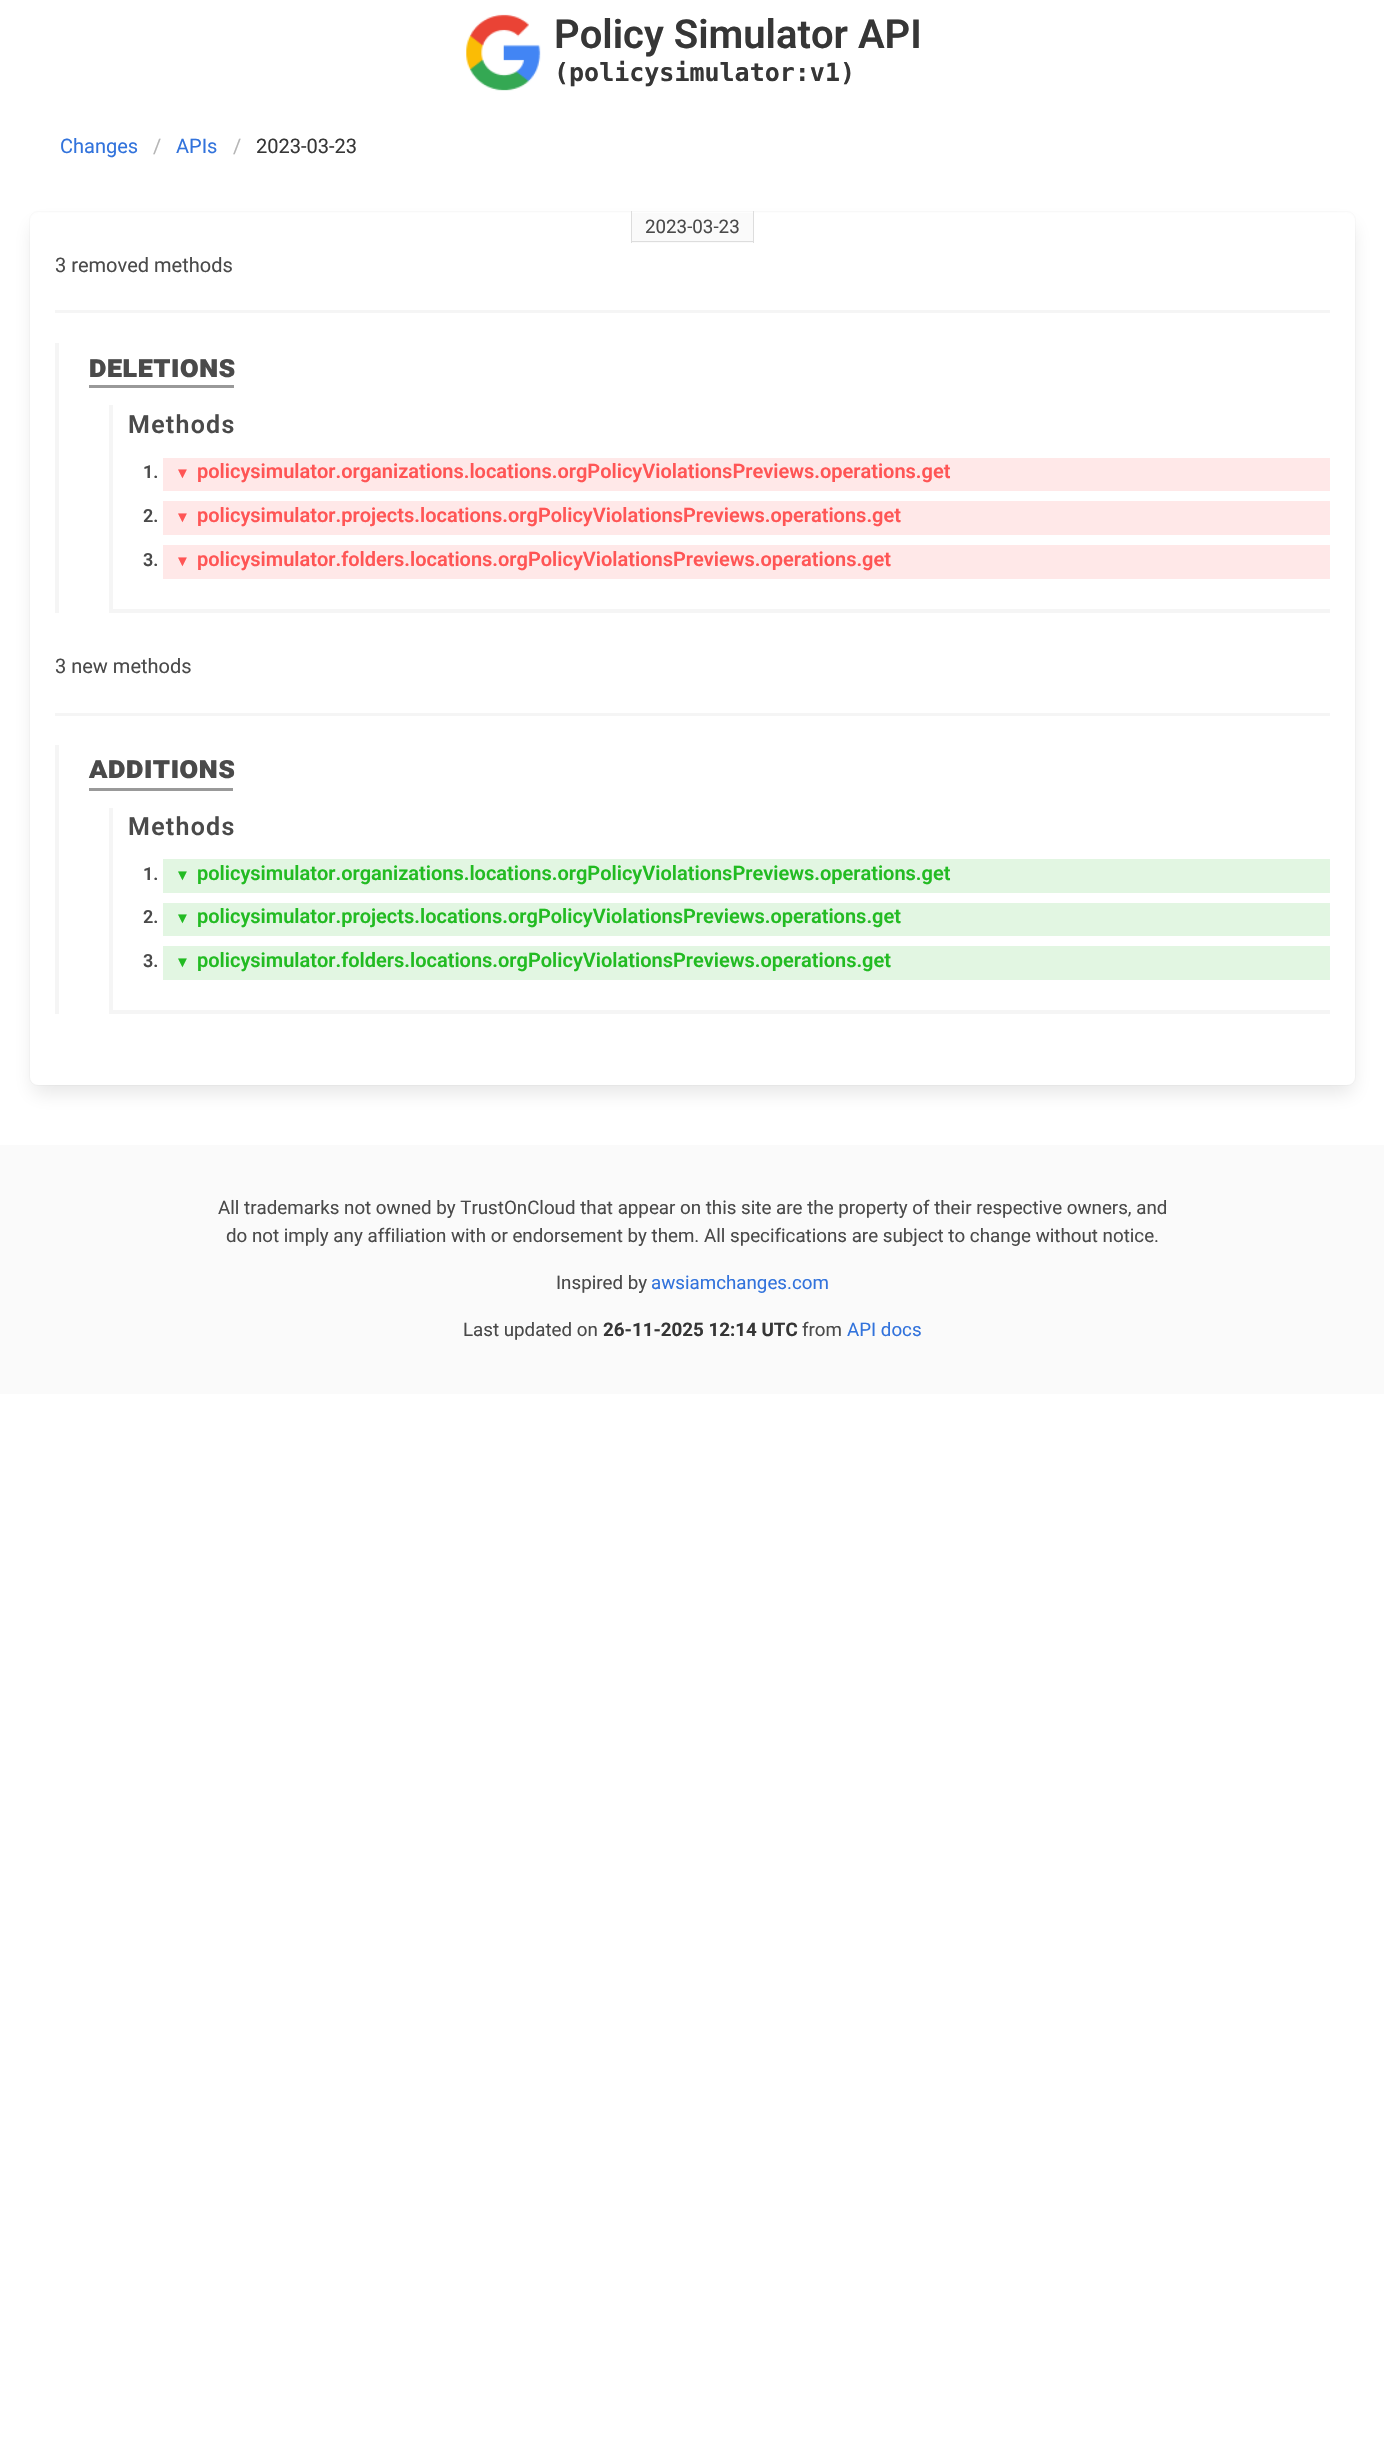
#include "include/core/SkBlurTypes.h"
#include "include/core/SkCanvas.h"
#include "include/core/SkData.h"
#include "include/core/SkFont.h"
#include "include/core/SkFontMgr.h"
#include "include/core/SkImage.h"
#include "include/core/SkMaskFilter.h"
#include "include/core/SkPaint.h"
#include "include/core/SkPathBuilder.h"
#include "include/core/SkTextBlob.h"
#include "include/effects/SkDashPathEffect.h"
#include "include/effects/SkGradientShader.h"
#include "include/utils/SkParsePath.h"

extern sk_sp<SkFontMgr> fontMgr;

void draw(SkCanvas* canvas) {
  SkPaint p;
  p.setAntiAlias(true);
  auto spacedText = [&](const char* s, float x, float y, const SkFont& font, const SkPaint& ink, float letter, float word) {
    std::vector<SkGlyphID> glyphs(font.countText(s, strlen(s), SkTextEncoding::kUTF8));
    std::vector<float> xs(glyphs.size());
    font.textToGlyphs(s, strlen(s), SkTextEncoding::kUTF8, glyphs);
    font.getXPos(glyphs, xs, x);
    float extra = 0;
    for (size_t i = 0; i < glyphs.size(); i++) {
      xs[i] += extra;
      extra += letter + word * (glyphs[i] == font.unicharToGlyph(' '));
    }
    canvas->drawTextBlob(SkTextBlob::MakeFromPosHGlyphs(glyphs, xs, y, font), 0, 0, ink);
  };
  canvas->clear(SK_ColorWHITE);
  canvas->drawImageRect(SkImages::DeferredFromEncodedData(SkData::MakeFromFileName("images/1.png")), SkRect::MakeLTRB(466, 14, 541, 91), SkSamplingOptions());
  p.setStyle(SkPaint::kStroke_Style);
  p.setStrokeWidth(1);
  p.setColor(SkColorSetRGB(250, 250, 250));
  canvas->drawRoundRect(SkRect::MakeLTRB(29.5f, 211.5f, 1355.5f, 1085.5f), 8.5f, 8.5f, p);
  p.setStyle(SkPaint::kFill_Style);
  p.setColor(SkColorSetARGB(26, 10, 10, 10));
  p.setMaskFilter(SkMaskFilter::MakeBlur(kNormal_SkBlurStyle, 10));
  canvas->drawRoundRect(SkRect::MakeLTRB(33, 225, 1353, 1093), 5, 5, p);
  p.setMaskFilter(nullptr);
  p.setColor(SK_ColorWHITE);
  canvas->drawRoundRect(SkRect::MakeLTRB(30, 213, 1355, 1085), 8, 8, p);
  p.setColor(SkColorSetRGB(250, 250, 250));
  canvas->drawRect(SkRect::MakeLTRB(632, 213, 753, 243), p);
  p.setColor(SkColorSetRGB(221, 221, 221));
  canvas->drawRect(SkRect::MakeLTRB(753, 211, 754, 243), p);
  canvas->drawRect(SkRect::MakeLTRB(631, 241, 754, 242), p);
  canvas->drawRect(SkRect::MakeLTRB(631, 211, 632, 243), p);
  p.setColor(SkColorSetRGB(245, 245, 245));
  canvas->drawRect(SkRect::MakeLTRB(55, 310, 1330, 313), p);
  canvas->drawRect(SkRect::MakeLTRB(55, 343, 59, 613), p);
  p.setColor(SkColorSetRGB(153, 153, 153));
  canvas->drawRect(SkRect::MakeLTRB(89, 385, 234, 388), p);
  p.setColor(SkColorSetRGB(245, 245, 245));
  canvas->drawRect(SkRect::MakeLTRB(109, 609, 1330, 613), p);
  canvas->drawRect(SkRect::MakeLTRB(109, 405, 113, 613), p);
  p.setColor(SkColorSetRGB(255, 232, 232));
  canvas->drawRect(SkRect::MakeLTRB(163, 458, 1330, 491), p);
  canvas->drawRect(SkRect::MakeLTRB(163, 501, 1330, 535), p);
  canvas->drawRect(SkRect::MakeLTRB(163, 545, 1330, 579), p);
  p.setColor(SkColorSetRGB(245, 245, 245));
  canvas->drawRect(SkRect::MakeLTRB(55, 713, 1330, 716), p);
  canvas->drawRect(SkRect::MakeLTRB(55, 745, 59, 1014), p);
  p.setColor(SkColorSetRGB(153, 153, 153));
  canvas->drawRect(SkRect::MakeLTRB(89, 788, 233, 791), p);
  p.setColor(SkColorSetRGB(245, 245, 245));
  canvas->drawRect(SkRect::MakeLTRB(109, 1010, 1330, 1014), p);
  canvas->drawRect(SkRect::MakeLTRB(109, 808, 113, 1014), p);
  p.setColor(SkColorSetRGB(226, 246, 226));
  canvas->drawRect(SkRect::MakeLTRB(163, 859, 1330, 893), p);
  canvas->drawRect(SkRect::MakeLTRB(163, 903, 1330, 936), p);
  canvas->drawRect(SkRect::MakeLTRB(163, 946, 1330, 980), p);
  p.setColor(SkColorSetRGB(250, 250, 250));
  canvas->drawRect(SkRect::MakeLTRB(0, 1145, 1384, 1394), p);
  SkFont font1(fontMgr->matchFamilyStyle("Roboto", SkFontStyle(600, SkFontStyle::kNormal_Width, SkFontStyle::kUpright_Slant)), 40);
  font1.setSubpixel(true);
  p.setColor(SkColorSetRGB(54, 54, 54));
  canvas->drawString("Policy Simulator API", 554, 48, font1, p);
  SkFont font2(fontMgr->matchFamilyStyle("DejaVu Sans Mono", SkFontStyle::Bold()), 25);
  font2.setSubpixel(true);
  canvas->drawString("(policysimulator:v1)", 554, 81, font2, p);
  SkFont font3(fontMgr->matchFamilyStyle("Roboto", SkFontStyle::Normal()), 20);
  font3.setSubpixel(true);
  p.setColor(SkColorSetRGB(50, 115, 220));
  canvas->drawString("Changes", 60, 153, font3, p);
  p.setColor(SkColorSetRGB(181, 181, 181));
  canvas->drawString("/", 153, 153, font3, p);
  p.setColor(SkColorSetRGB(50, 115, 220));
  canvas->drawString("APIs", 176, 153, font3, p);
  p.setColor(SkColorSetRGB(181, 181, 181));
  canvas->drawString("/", 233, 153, font3, p);
  p.setColor(SkColorSetRGB(54, 54, 54));
  canvas->drawString("2023-03-23", 256, 153, font3, p);
  SkFont font4(fontMgr->matchFamilyStyle("Roboto", SkFontStyle::Normal()), 18.75f);
  font4.setSubpixel(true);
  p.setColor(SkColorSetRGB(74, 74, 74));
  canvas->drawString("2023-03-23", 645, 233, font4, p);
  canvas->drawString("3 removed methods", 55, 272, font3, p);
  SkFont font5(fontMgr->matchFamilyStyle("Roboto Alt", SkFontStyle(900, SkFontStyle::kNormal_Width, SkFontStyle::kUpright_Slant)), 31.25f);
  font5.setSubpixel(true);
  spacedText("Deletions", 89, 377, font5, p, 0.6f, 0);
  SkFont font6(fontMgr->matchFamilyStyle("Roboto", SkFontStyle(600, SkFontStyle::kNormal_Width, SkFontStyle::kUpright_Slant)), 25);
  font6.setSubpixel(true);
  spacedText("Methods", 128, 433, font6, p, 1.25f, 0);
  SkFont font7(fontMgr->matchFamilyStyle("Roboto", SkFontStyle(600, SkFontStyle::kNormal_Width, SkFontStyle::kUpright_Slant)), 18);
  font7.setSubpixel(true);
  canvas->drawString("1.", 143, 478, font7, p);
  SkFont font8(fontMgr->matchFamilyStyle("Liberation Sans", SkFontStyle::Bold()), 15);
  font8.setSubpixel(true);
  p.setColor(SkColorSetRGB(255, 85, 85));
  canvas->drawString("▼", 175, 478, font8, p);
  SkFont font9(fontMgr->matchFamilyStyle("Roboto", SkFontStyle(600, SkFontStyle::kNormal_Width, SkFontStyle::kUpright_Slant)), 20);
  font9.setSubpixel(true);
  canvas->drawString("policysimulator.organizations.locations.orgPolicyViolationsPreviews.operations.get", 197, 478, font9, p);
  p.setColor(SkColorSetRGB(74, 74, 74));
  canvas->drawString("2.", 143, 522, font7, p);
  p.setColor(SkColorSetRGB(255, 85, 85));
  canvas->drawString("▼", 175, 522, font8, p);
  canvas->drawString("policysimulator.projects.locations.orgPolicyViolationsPreviews.operations.get", 197, 522, font9, p);
  p.setColor(SkColorSetRGB(74, 74, 74));
  canvas->drawString("3.", 143, 566, font7, p);
  p.setColor(SkColorSetRGB(255, 85, 85));
  canvas->drawString("▼", 175, 566, font8, p);
  canvas->drawString("policysimulator.folders.locations.orgPolicyViolationsPreviews.operations.get", 197, 566, font9, p);
  p.setColor(SkColorSetRGB(74, 74, 74));
  canvas->drawString("3 new methods", 55, 673, font3, p);
  spacedText("Additions", 89, 778, font5, p, 0.6f, 0);
  spacedText("Methods", 128, 835, font6, p, 1.25f, 0);
  canvas->drawString("1.", 143, 880, font7, p);
  p.setColor(SkColorSetRGB(34, 187, 34));
  canvas->drawString("▼", 175, 880, font8, p);
  canvas->drawString("policysimulator.organizations.locations.orgPolicyViolationsPreviews.operations.get", 197, 880, font9, p);
  p.setColor(SkColorSetRGB(74, 74, 74));
  canvas->drawString("2.", 143, 923, font7, p);
  p.setColor(SkColorSetRGB(34, 187, 34));
  canvas->drawString("▼", 175, 923, font8, p);
  canvas->drawString("policysimulator.projects.locations.orgPolicyViolationsPreviews.operations.get", 197, 923, font9, p);
  p.setColor(SkColorSetRGB(74, 74, 74));
  canvas->drawString("3.", 143, 967, font7, p);
  p.setColor(SkColorSetRGB(34, 187, 34));
  canvas->drawString("▼", 175, 967, font8, p);
  canvas->drawString("policysimulator.folders.locations.orgPolicyViolationsPreviews.operations.get", 197, 967, font9, p);
  p.setColor(SkColorSetRGB(74, 74, 74));
  canvas->drawString("All trademarks not owned by TrustOnCloud that appear on this site are the property of their respective owners, and", 218, 1214, font4, p);
  canvas->drawString("do not imply any affiliation with or endorsement by them. All specifications are subject to change without notice.", 226, 1242, font4, p);
  canvas->drawString("Inspired by", 556, 1289, font4, p);
  p.setColor(SkColorSetRGB(50, 115, 220));
  canvas->drawString("awsiamchanges.com", 651, 1289, font4, p);
  p.setColor(SkColorSetRGB(74, 74, 74));
  canvas->drawString("Last updated on", 463, 1336, font4, p);
  SkFont font10(fontMgr->matchFamilyStyle("Roboto", SkFontStyle::Bold()), 18.75f);
  font10.setSubpixel(true);
  p.setColor(SkColorSetRGB(54, 54, 54));
  canvas->drawString("26-11-2025 12:14 UTC", 603, 1336, font10, p);
  p.setColor(SkColorSetRGB(74, 74, 74));
  canvas->drawString("from", 802, 1336, font4, p);
  p.setColor(SkColorSetRGB(50, 115, 220));
  canvas->drawString("API docs", 847, 1336, font4, p);
}
